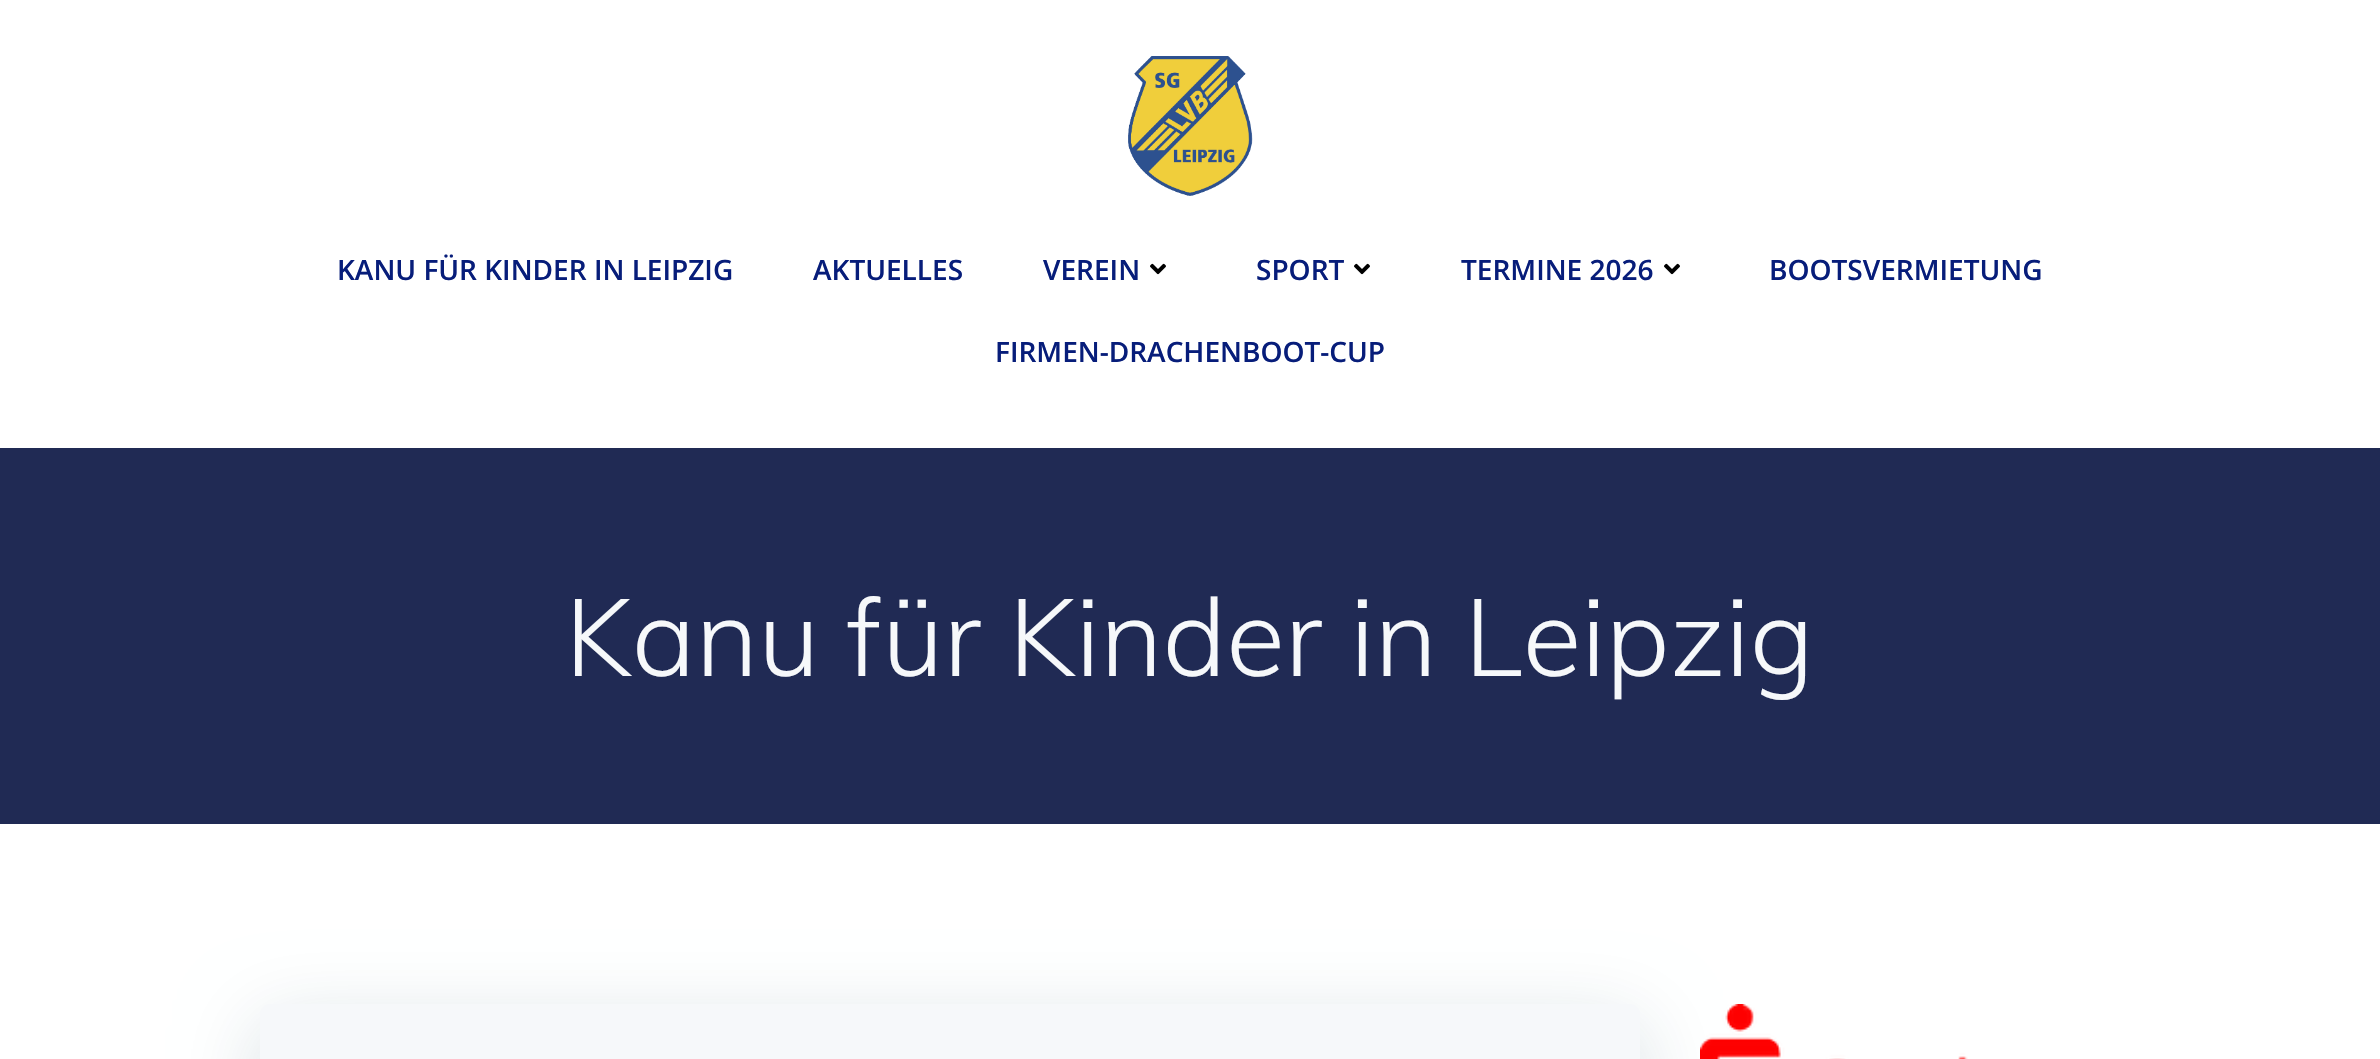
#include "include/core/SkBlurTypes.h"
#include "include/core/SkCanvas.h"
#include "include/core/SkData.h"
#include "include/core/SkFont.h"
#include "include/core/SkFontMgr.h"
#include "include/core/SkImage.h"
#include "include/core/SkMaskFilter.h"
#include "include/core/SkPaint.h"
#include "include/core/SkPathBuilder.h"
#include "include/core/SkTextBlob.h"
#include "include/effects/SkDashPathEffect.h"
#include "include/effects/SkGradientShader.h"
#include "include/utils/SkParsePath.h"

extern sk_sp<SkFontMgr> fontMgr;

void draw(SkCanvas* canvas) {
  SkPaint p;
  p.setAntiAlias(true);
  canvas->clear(SK_ColorWHITE);
  canvas->drawImageRect(SkImages::DeferredFromEncodedData(SkData::MakeFromFileName("images/1.png")), SkRect::MakeLTRB(1128, 56, 1253, 196), SkSamplingOptions());
  canvas->drawImageRect(SkImages::DeferredFromEncodedData(SkData::MakeFromFileName("images/2.png")), SkRect::MakeLTRB(1150, 263, 1166, 275), SkSamplingOptions());
  canvas->drawImageRect(SkImages::DeferredFromEncodedData(SkData::MakeFromFileName("images/2.png")), SkRect::MakeLTRB(1354, 263, 1370, 275), SkSamplingOptions());
  canvas->drawImageRect(SkImages::DeferredFromEncodedData(SkData::MakeFromFileName("images/2.png")), SkRect::MakeLTRB(1664, 263, 1680, 275), SkSamplingOptions());
  p.setColor(SkColorSetRGB(32, 42, 84));
  canvas->drawRect(SkRect::MakeLTRB(0, 448, 2380, 824), p);
  p.setColor(SkColorSetARGB(38, 1, 51, 74));
  p.setMaskFilter(SkMaskFilter::MakeBlur(kNormal_SkBlurStyle, 40));
  canvas->drawRoundRect(SkRect::MakeLTRB(260, 1024, 1640, 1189), 10, 10, p);
  p.setMaskFilter(nullptr);
  p.setColor(SkColorSetRGB(246, 248, 250));
  canvas->drawRoundRect(SkRect::MakeLTRB(260, 1004, 1640, 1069), 10, 10, p);
  canvas->drawImageRect(SkImages::DeferredFromEncodedData(SkData::MakeFromFileName("images/3.png")), SkRect::MakeLTRB(1700, 1004, 1968, 1059), SkSamplingOptions());
  SkFont font1(fontMgr->matchFamilyStyle("Open Sans", SkFontStyle(600, SkFontStyle::kNormal_Width, SkFontStyle::kUpright_Slant)), 28);
  font1.setSubpixel(true);
  p.setColor(SkColorSetRGB(7, 29, 122));
  canvas->drawString("KANU FÜR KINDER IN LEIPZIG", 337, 280, font1, p);
  canvas->drawString("AKTUELLES", 813, 280, font1, p);
  canvas->drawString("VEREIN", 1043, 280, font1, p);
  canvas->drawString("SPORT", 1256, 280, font1, p);
  canvas->drawString("TERMINE 2026", 1461, 280, font1, p);
  canvas->drawString("BOOTSVERMIETUNG", 1769, 280, font1, p);
  canvas->drawString("FIRMEN-DRACHENBOOT-CUP", 995, 362, font1, p);
  SkFont font2(fontMgr->matchFamilyStyle("Muli", SkFontStyle(300, SkFontStyle::kNormal_Width, SkFontStyle::kUpright_Slant)), 108);
  font2.setSubpixel(true);
  p.setColor(SkColorSetRGB(246, 248, 250));
  canvas->drawString("Kanu für Kinder in Leipzig", 565, 676, font2, p);
}
